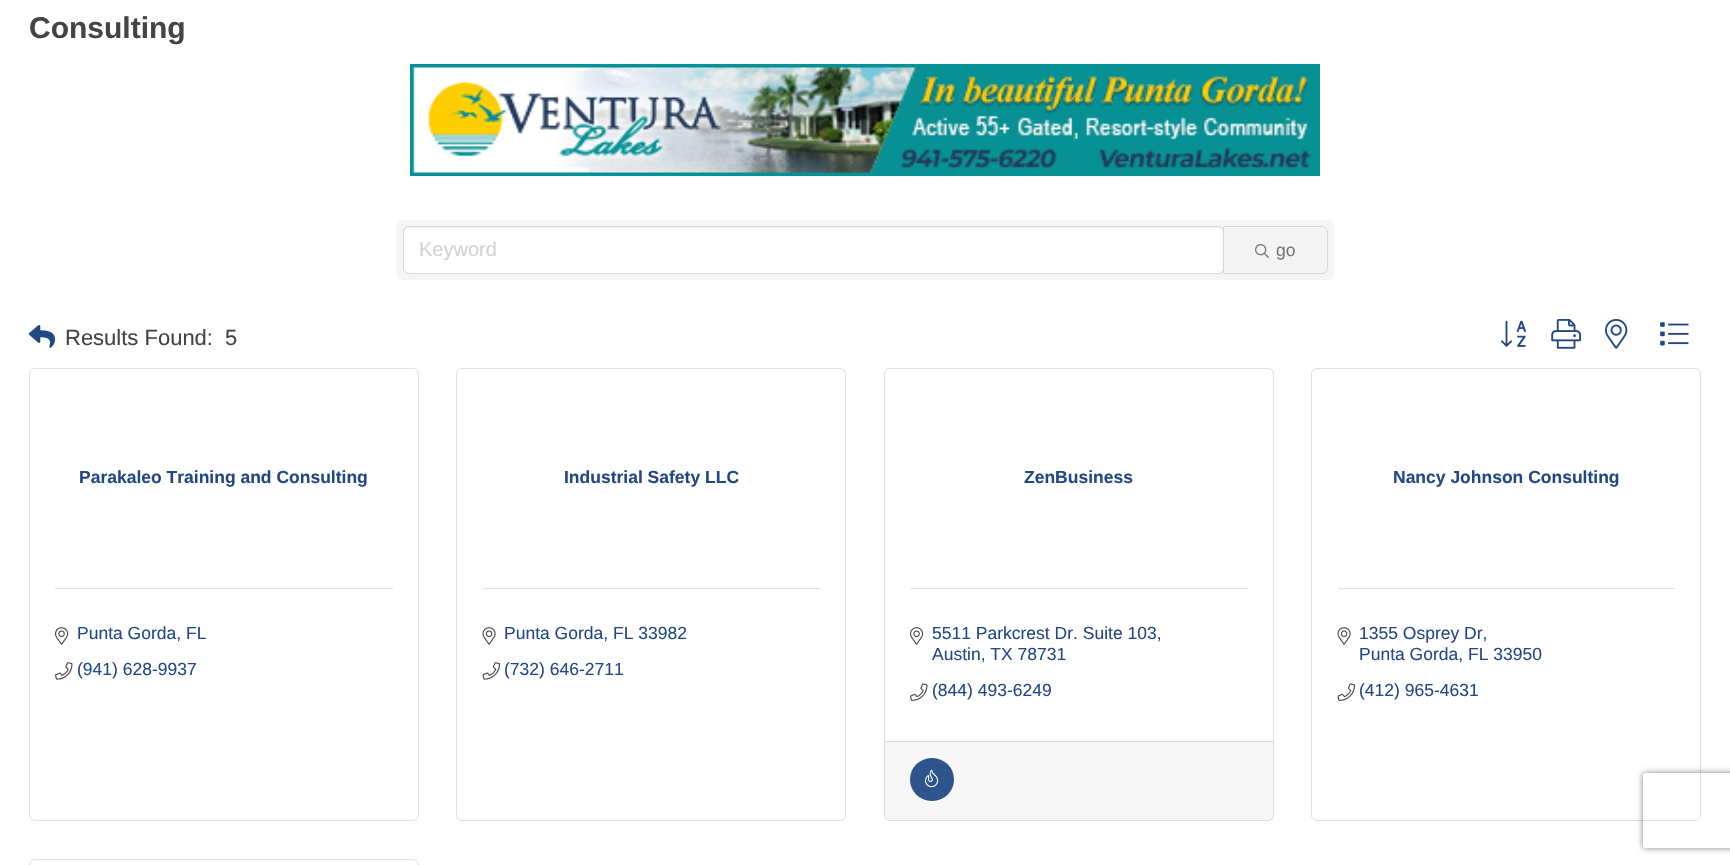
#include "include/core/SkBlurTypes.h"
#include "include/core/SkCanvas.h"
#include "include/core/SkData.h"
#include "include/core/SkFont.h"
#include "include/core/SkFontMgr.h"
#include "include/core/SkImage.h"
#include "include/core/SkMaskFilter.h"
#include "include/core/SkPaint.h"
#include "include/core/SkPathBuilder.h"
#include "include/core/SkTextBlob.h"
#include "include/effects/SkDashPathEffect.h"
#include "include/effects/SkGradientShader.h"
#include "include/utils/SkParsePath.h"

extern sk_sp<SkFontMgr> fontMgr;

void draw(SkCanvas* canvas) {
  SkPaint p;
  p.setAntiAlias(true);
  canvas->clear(SK_ColorWHITE);
  canvas->drawImageRect(SkImages::DeferredFromEncodedData(SkData::MakeFromFileName("images/1.png")), SkRect::MakeLTRB(410, 63, 1320, 177), SkSamplingOptions());
  p.setColor(SkColorSetRGB(245, 245, 245));
  canvas->drawRoundRect(SkRect::MakeLTRB(396, 220, 1334, 280), 6, 6, p);
  p.setColor(SK_ColorWHITE);
  canvas->drawRoundRect(SkRect::MakeLTRB(404, 228, 1223, 273), 5, 5, p);
  p.setStyle(SkPaint::kStroke_Style);
  p.setStrokeWidth(1);
  p.setColor(SkColorSetARGB(31, 0, 0, 0));
  canvas->drawRoundRect(SkRect::MakeLTRB(403.5f, 226.5f, 1223.5f, 273.5f), 5.5f, 5.5f, p);
  p.setStyle(SkPaint::kFill_Style);
  p.setColor(SkColorSetRGB(244, 244, 244));
  canvas->drawPath(SkPathBuilder().moveTo(1223.5f, 226.5f).lineTo(1322, 226.5f).cubicTo(1325, 226.5f, 1327.5f, 229, 1327.5f, 232).lineTo(1327.5f, 268).cubicTo(1327.5f, 271, 1325, 273.5f, 1322, 273.5f).lineTo(1223.5f, 273.5f).close().detach(), p);
  p.setStyle(SkPaint::kStroke_Style);
  p.setColor(SkColorSetRGB(214, 214, 214));
  canvas->drawPath(SkPathBuilder().moveTo(1223.5f, 226.5f).lineTo(1322, 226.5f).cubicTo(1325, 226.5f, 1327.5f, 229, 1327.5f, 232).lineTo(1327.5f, 268).cubicTo(1327.5f, 271, 1325, 273.5f, 1322, 273.5f).lineTo(1223.5f, 273.5f).close().detach(), p);
  canvas->drawImageRect(SkImages::DeferredFromEncodedData(SkData::MakeFromFileName("images/2.png")), SkRect::MakeLTRB(1255, 244, 1269, 258), SkSamplingOptions());
  canvas->drawImageRect(SkImages::DeferredFromEncodedData(SkData::MakeFromFileName("images/3.png")), SkRect::MakeLTRB(28, 325, 56, 348), SkSamplingOptions());
  canvas->drawImageRect(SkImages::DeferredFromEncodedData(SkData::MakeFromFileName("images/4.png")), SkRect::MakeLTRB(1501, 320, 1526, 347), SkSamplingOptions());
  canvas->drawImageRect(SkImages::DeferredFromEncodedData(SkData::MakeFromFileName("images/5.png")), SkRect::MakeLTRB(1551, 319, 1581, 349), SkSamplingOptions());
  canvas->drawImageRect(SkImages::DeferredFromEncodedData(SkData::MakeFromFileName("images/6.png")), SkRect::MakeLTRB(1605, 319, 1628, 349), SkSamplingOptions());
  canvas->drawImageRect(SkImages::DeferredFromEncodedData(SkData::MakeFromFileName("images/7.png")), SkRect::MakeLTRB(1660, 322, 1689, 346), SkSamplingOptions());
  p.setColor(SkColorSetRGB(223, 223, 223));
  canvas->drawRoundRect(SkRect::MakeLTRB(29.5f, 368.5f, 418.5f, 820.5f), 5.5f, 5.5f, p);
  p.setStyle(SkPaint::kFill_Style);
  canvas->drawRect(SkRect::MakeLTRB(55, 588, 393, 589), p);
  canvas->drawImageRect(SkImages::DeferredFromEncodedData(SkData::MakeFromFileName("images/8.png")), SkRect::MakeLTRB(55, 627, 69, 645), SkSamplingOptions());
  canvas->drawImageRect(SkImages::DeferredFromEncodedData(SkData::MakeFromFileName("images/9.png")), SkRect::MakeLTRB(55, 662, 73, 680), SkSamplingOptions());
  p.setStyle(SkPaint::kStroke_Style);
  canvas->drawRoundRect(SkRect::MakeLTRB(456.5f, 368.5f, 845.5f, 820.5f), 5.5f, 5.5f, p);
  p.setStyle(SkPaint::kFill_Style);
  canvas->drawRect(SkRect::MakeLTRB(483, 588, 820, 589), p);
  canvas->drawImageRect(SkImages::DeferredFromEncodedData(SkData::MakeFromFileName("images/10.png")), SkRect::MakeLTRB(482, 627, 496, 645), SkSamplingOptions());
  canvas->drawImageRect(SkImages::DeferredFromEncodedData(SkData::MakeFromFileName("images/11.png")), SkRect::MakeLTRB(482, 662, 500, 680), SkSamplingOptions());
  p.setStyle(SkPaint::kStroke_Style);
  canvas->drawRoundRect(SkRect::MakeLTRB(884.5f, 368.5f, 1273.5f, 820.5f), 5.5f, 5.5f, p);
  p.setStyle(SkPaint::kFill_Style);
  canvas->drawRect(SkRect::MakeLTRB(910, 588, 1248, 589), p);
  canvas->drawImageRect(SkImages::DeferredFromEncodedData(SkData::MakeFromFileName("images/8.png")), SkRect::MakeLTRB(910, 627, 924, 645), SkSamplingOptions());
  canvas->drawImageRect(SkImages::DeferredFromEncodedData(SkData::MakeFromFileName("images/12.png")), SkRect::MakeLTRB(910, 683, 928, 701), SkSamplingOptions());
  p.setColor(SkColorSetARGB(8, 0, 0, 0));
  canvas->drawRect(SkRect::MakeLTRB(885, 742, 1273, 820), p);
  p.setColor(SkColorSetRGB(216, 216, 216));
  canvas->drawRect(SkRect::MakeLTRB(885, 741, 1273, 742), p);
  p.setColor(SkColorSetRGB(45, 84, 139));
  canvas->drawRoundRect(SkRect::MakeLTRB(910, 758, 954, 801), 21.5f, 21.5f, p);
  canvas->drawImageRect(SkImages::DeferredFromEncodedData(SkData::MakeFromFileName("images/13.png")), SkRect::MakeLTRB(925, 769, 939, 788), SkSamplingOptions());
  p.setStyle(SkPaint::kStroke_Style);
  p.setColor(SkColorSetRGB(223, 223, 223));
  canvas->drawRoundRect(SkRect::MakeLTRB(1311.5f, 368.5f, 1700.5f, 820.5f), 5.5f, 5.5f, p);
  p.setStyle(SkPaint::kFill_Style);
  canvas->drawRect(SkRect::MakeLTRB(1338, 588, 1675, 589), p);
  canvas->drawImageRect(SkImages::DeferredFromEncodedData(SkData::MakeFromFileName("images/10.png")), SkRect::MakeLTRB(1337, 627, 1351, 645), SkSamplingOptions());
  canvas->drawImageRect(SkImages::DeferredFromEncodedData(SkData::MakeFromFileName("images/14.png")), SkRect::MakeLTRB(1337, 683, 1355, 701), SkSamplingOptions());
  p.setStyle(SkPaint::kStroke_Style);
  canvas->drawRoundRect(SkRect::MakeLTRB(29.5f, 859.5f, 418.5f, 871.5f), 5.5f, 5.5f, p);
  canvas->save();
  canvas->clipPath(SkPathBuilder(SkPathFillType::kEvenOdd).moveTo(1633, 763).lineTo(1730, 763).lineTo(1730, 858).lineTo(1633, 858).close().moveTo(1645.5f, 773).lineTo(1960.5f, 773).cubicTo(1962, 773, 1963, 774, 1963, 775.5f).lineTo(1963, 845.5f).cubicTo(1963, 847, 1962, 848, 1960.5f, 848).lineTo(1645.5f, 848).cubicTo(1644, 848, 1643, 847, 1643, 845.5f).lineTo(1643, 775.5f).cubicTo(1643, 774, 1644, 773, 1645.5f, 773).close().detach(), true);
  p.setStyle(SkPaint::kFill_Style);
  p.setColor(SkColorSetRGB(128, 128, 128));
  p.setMaskFilter(SkMaskFilter::MakeBlur(kNormal_SkBlurStyle, 3));
  canvas->drawRoundRect(SkRect::MakeLTRB(1643, 773, 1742, 848), 2.5f, 2.5f, p);
  p.setMaskFilter(nullptr);
  canvas->restore();
  SkFont font1(fontMgr->matchFamilyStyle("Liberation Sans", SkFontStyle::Bold()), 30);
  font1.setSubpixel(true);
  p.setColor(SkColorSetRGB(68, 68, 68));
  canvas->drawString("Consulting", 29, 38, font1, p);
  SkFont font2(fontMgr->matchFamilyStyle("Liberation Sans", SkFontStyle::Normal()), 20);
  font2.setSubpixel(true);
  p.setColor(SkColorSetRGB(210, 210, 210));
  canvas->drawString("Keyword", 419, 256, font2, p);
  SkFont font3(fontMgr->matchFamilyStyle("Liberation Sans", SkFontStyle::Normal()), 17.5f);
  font3.setSubpixel(true);
  p.setColor(SkColorSetRGB(119, 119, 119));
  canvas->drawString("go", 1276, 256, font3, p);
  SkFont font4(fontMgr->matchFamilyStyle("Liberation Sans", SkFontStyle::Normal()), 22);
  font4.setSubpixel(true);
  p.setColor(SkColorSetRGB(68, 68, 68));
  canvas->drawString("Results Found:", 65, 345, font4, p);
  canvas->drawString("5", 225, 345, font4, p);
  SkFont font5(fontMgr->matchFamilyStyle("Liberation Sans", SkFontStyle::Bold()), 17.5f);
  font5.setSubpixel(true);
  p.setColor(SkColorSetRGB(34, 72, 132));
  canvas->drawString("Parakaleo Training and Consulting", 79, 483, font5, p);
  canvas->drawString("Punta Gorda, FL", 77, 639, font3, p);
  canvas->drawString("(941) 628-9937", 77, 675, font3, p);
  canvas->drawString("Industrial Safety LLC", 564, 483, font5, p);
  canvas->drawString("Punta Gorda, FL 33982", 504, 639, font3, p);
  canvas->drawString("(732) 646-2711", 504, 675, font3, p);
  canvas->drawString("ZenBusiness", 1024, 483, font5, p);
  canvas->drawString("5511 Parkcrest Dr. Suite 103,", 932, 639, font3, p);
  canvas->drawString("Austin, TX 78731", 932, 660, font3, p);
  canvas->drawString("(844) 493-6249", 932, 696, font3, p);
  canvas->drawString("Nancy Johnson Consulting", 1393, 483, font5, p);
  canvas->drawString("1355 Osprey Dr,", 1359, 639, font3, p);
  canvas->drawString("Punta Gorda, FL 33950", 1359, 660, font3, p);
  canvas->drawString("(412) 965-4631", 1359, 696, font3, p);
}
